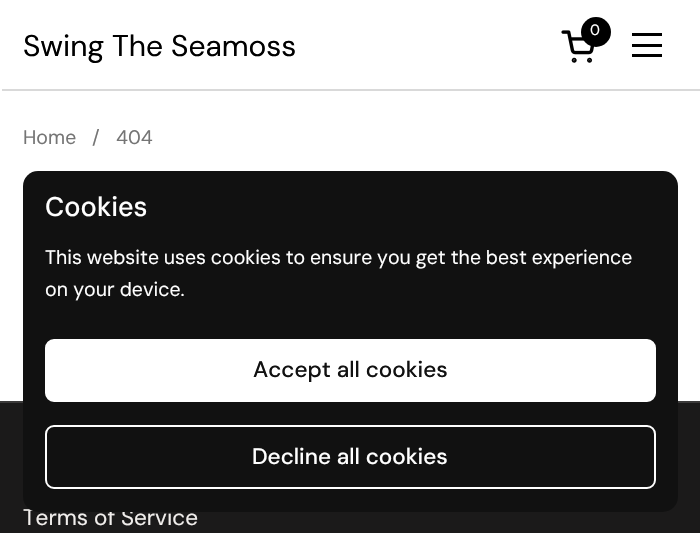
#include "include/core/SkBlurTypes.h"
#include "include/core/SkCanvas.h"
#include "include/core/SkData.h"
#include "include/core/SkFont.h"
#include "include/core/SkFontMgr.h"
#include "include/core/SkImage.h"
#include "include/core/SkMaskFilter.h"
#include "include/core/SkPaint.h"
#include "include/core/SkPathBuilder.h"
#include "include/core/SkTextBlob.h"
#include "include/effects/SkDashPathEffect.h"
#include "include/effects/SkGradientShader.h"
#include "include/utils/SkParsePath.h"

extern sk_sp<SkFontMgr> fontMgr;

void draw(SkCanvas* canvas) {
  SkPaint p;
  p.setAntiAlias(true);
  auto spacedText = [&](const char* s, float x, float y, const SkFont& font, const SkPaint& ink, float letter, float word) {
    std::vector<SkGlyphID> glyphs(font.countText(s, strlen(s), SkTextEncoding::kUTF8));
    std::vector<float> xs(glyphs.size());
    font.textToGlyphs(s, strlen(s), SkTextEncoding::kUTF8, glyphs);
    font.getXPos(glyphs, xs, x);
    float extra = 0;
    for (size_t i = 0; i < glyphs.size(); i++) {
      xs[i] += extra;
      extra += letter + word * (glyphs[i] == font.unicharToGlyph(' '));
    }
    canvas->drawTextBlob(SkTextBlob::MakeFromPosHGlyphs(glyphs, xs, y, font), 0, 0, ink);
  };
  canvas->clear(SK_ColorWHITE);
  p.setColor(SK_ColorBLACK);
  canvas->drawCircle(596, 32, 15, p);
  canvas->drawRect(SkRect::MakeLTRB(632, 33, 662, 36), p);
  canvas->drawRect(SkRect::MakeLTRB(632, 44, 662, 47), p);
  canvas->drawRect(SkRect::MakeLTRB(632, 54, 662, 57), p);
  p.setColor(SkColorSetRGB(217, 217, 217));
  canvas->drawRect(SkRect::MakeLTRB(2, 89, 700, 91), p);
  p.setColor(SkColorSetRGB(27, 26, 26));
  canvas->drawRect(SkRect::MakeLTRB(0, 403, 700, 533), p);
  p.setColor(SkColorSetRGB(59, 58, 58));
  canvas->drawRect(SkRect::MakeLTRB(0, 401, 700, 403), p);
  SkFont font1(fontMgr->matchFamilyStyle("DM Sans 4", SkFontStyle::Normal()), 15);
  font1.setSubpixel(true);
  p.setColor(SK_ColorWHITE);
  canvas->drawString("0", 590, 35, font1, p);
  canvas->drawImageRect(SkImages::DeferredFromEncodedData(SkData::MakeFromFileName("images/1.png")), SkRect::MakeLTRB(561, 30, 594, 63), SkSamplingOptions());
  SkFont font2(fontMgr->matchFamilyStyle("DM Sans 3", SkFontStyle::Normal()), 30);
  font2.setSubpixel(true);
  p.setColor(SK_ColorBLACK);
  canvas->drawString("Swing The Seamoss", 23, 56, font2, p);
  SkFont font3(fontMgr->matchFamilyStyle("DM Sans", SkFontStyle::Normal()), 19.5f);
  font3.setSubpixel(true);
  p.setColor(SkColorSetRGB(117, 117, 117));
  canvas->drawString("Home", 23, 144, font3, p);
  canvas->drawString("/", 92, 144, font3, p);
  canvas->drawString("404", 116, 144, font3, p);
  SkFont font4(fontMgr->matchFamilyStyle("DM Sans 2", SkFontStyle::Normal()), 22.5f);
  font4.setSubpixel(true);
  p.setColor(SkColorSetRGB(241, 238, 236));
  canvas->drawString("Terms of Service", 23, 525, font4, p);
  p.setColor(SkColorSetRGB(17, 17, 17));
  canvas->drawRoundRect(SkRect::MakeLTRB(23, 171, 678, 512), 15, 15, p);
  p.setStyle(SkPaint::kStroke_Style);
  p.setStrokeWidth(2);
  p.setColor(SK_ColorWHITE);
  canvas->drawRoundRect(SkRect::MakeLTRB(46, 426, 655, 488), 8, 8, p);
  SkFont font5(fontMgr->matchFamilyStyle("DM Sans 2", SkFontStyle(500, SkFontStyle::kNormal_Width, SkFontStyle::kUpright_Slant)), 22.5f);
  font5.setSubpixel(true);
  p.setStyle(SkPaint::kFill_Style);
  canvas->drawString("Decline all cookies", 252, 464, font5, p);
  canvas->drawRoundRect(SkRect::MakeLTRB(46, 340, 655, 401), 8, 8, p);
  p.setStyle(SkPaint::kStroke_Style);
  canvas->drawRoundRect(SkRect::MakeLTRB(46, 340, 655, 401), 8, 8, p);
  p.setStyle(SkPaint::kFill_Style);
  p.setColor(SkColorSetRGB(17, 17, 17));
  canvas->drawString("Accept all cookies", 253, 377, font5, p);
  p.setColor(SK_ColorWHITE);
  canvas->drawString("on your device.", 45, 296, font3, p);
  spacedText("This website uses cookies to ensure you get the best experience", 45, 264, font3, p, 0, -0.4f);
  SkFont font6(fontMgr->matchFamilyStyle("DM Sans", SkFontStyle(500, SkFontStyle::kNormal_Width, SkFontStyle::kUpright_Slant)), 27);
  font6.setSubpixel(true);
  canvas->drawString("Cookies", 45, 216, font6, p);
}
